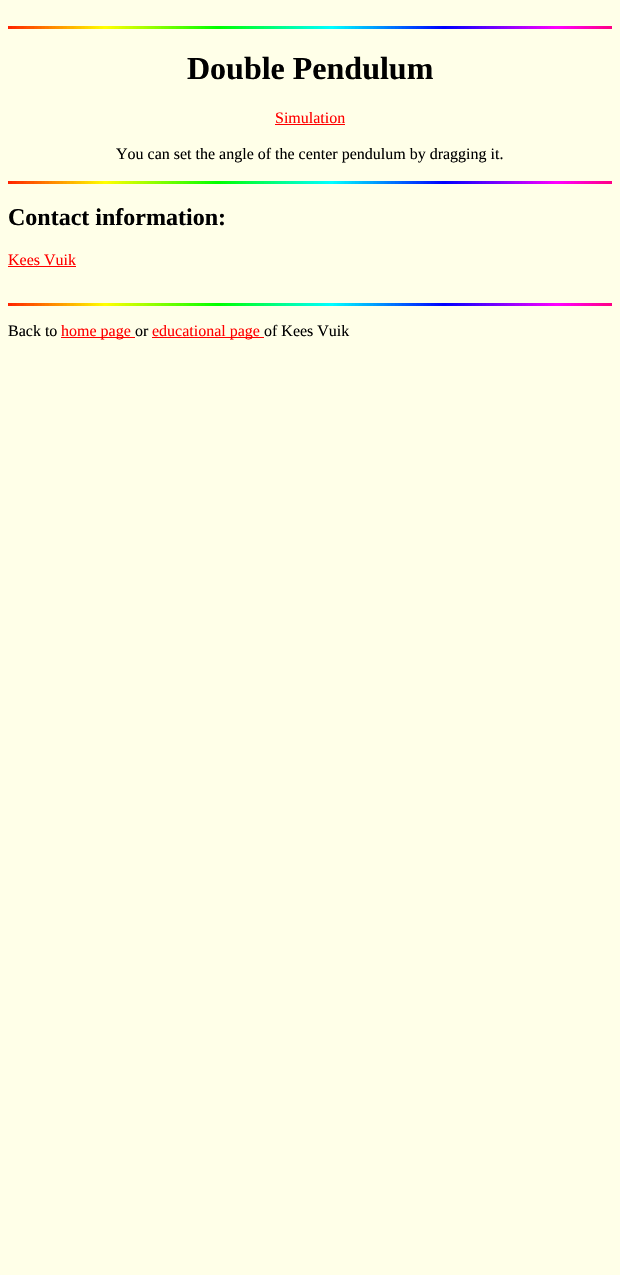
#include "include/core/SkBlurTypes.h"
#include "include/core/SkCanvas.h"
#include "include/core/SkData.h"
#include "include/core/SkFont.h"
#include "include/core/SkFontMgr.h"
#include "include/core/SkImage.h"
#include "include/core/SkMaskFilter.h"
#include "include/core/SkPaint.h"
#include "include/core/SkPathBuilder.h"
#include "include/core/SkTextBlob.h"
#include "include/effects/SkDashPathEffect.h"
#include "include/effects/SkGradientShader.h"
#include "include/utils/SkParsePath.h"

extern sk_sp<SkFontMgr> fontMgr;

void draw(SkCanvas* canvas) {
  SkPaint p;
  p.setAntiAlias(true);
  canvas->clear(SkColorSetRGB(255, 255, 232));
  canvas->drawImageRect(SkImages::DeferredFromEncodedData(SkData::MakeFromFileName("images/1.png")), SkRect::MakeLTRB(8, 26, 612, 29), SkSamplingOptions());
  p.setColor(SkColorSetRGB(255, 0, 0));
  canvas->drawRect(SkRect::MakeLTRB(275, 124, 345, 125), p);
  canvas->drawImageRect(SkImages::DeferredFromEncodedData(SkData::MakeFromFileName("images/1.png")), SkRect::MakeLTRB(8, 181, 612, 184), SkSamplingOptions());
  canvas->drawRect(SkRect::MakeLTRB(8, 266, 76, 267), p);
  canvas->drawImageRect(SkImages::DeferredFromEncodedData(SkData::MakeFromFileName("images/1.png")), SkRect::MakeLTRB(8, 303, 612, 306), SkSamplingOptions());
  canvas->drawRect(SkRect::MakeLTRB(61, 337, 135, 338), p);
  canvas->drawRect(SkRect::MakeLTRB(152, 337, 264, 338), p);
  SkFont font1(fontMgr->matchFamilyStyle("Liberation Serif", SkFontStyle::Bold()), 32);
  font1.setSubpixel(true);
  p.setColor(SK_ColorBLACK);
  canvas->drawString("Double Pendulum", 187, 79, font1, p);
  SkFont font2(fontMgr->matchFamilyStyle("Liberation Serif", SkFontStyle::Normal()), 16);
  font2.setSubpixel(true);
  p.setColor(SkColorSetRGB(255, 0, 0));
  canvas->drawString("Simulation", 275, 123, font2, p);
  p.setColor(SK_ColorBLACK);
  canvas->drawString("You can set the angle of the center pendulum by dragging it.", 116, 159, font2, p);
  SkFont font3(fontMgr->matchFamilyStyle("Liberation Serif", SkFontStyle::Bold()), 24);
  font3.setSubpixel(true);
  canvas->drawString("Contact information:", 8, 225, font3, p);
  p.setColor(SkColorSetRGB(255, 0, 0));
  canvas->drawString("Kees Vuik", 8, 265, font2, p);
  p.setColor(SK_ColorBLACK);
  canvas->drawString("Back to", 8, 336, font2, p);
  p.setColor(SkColorSetRGB(255, 0, 0));
  canvas->drawString("home page", 61, 336, font2, p);
  p.setColor(SK_ColorBLACK);
  canvas->drawString("or", 135, 336, font2, p);
  p.setColor(SkColorSetRGB(255, 0, 0));
  canvas->drawString("educational page", 152, 336, font2, p);
  p.setColor(SK_ColorBLACK);
  canvas->drawString("of Kees Vuik", 264, 336, font2, p);
}
